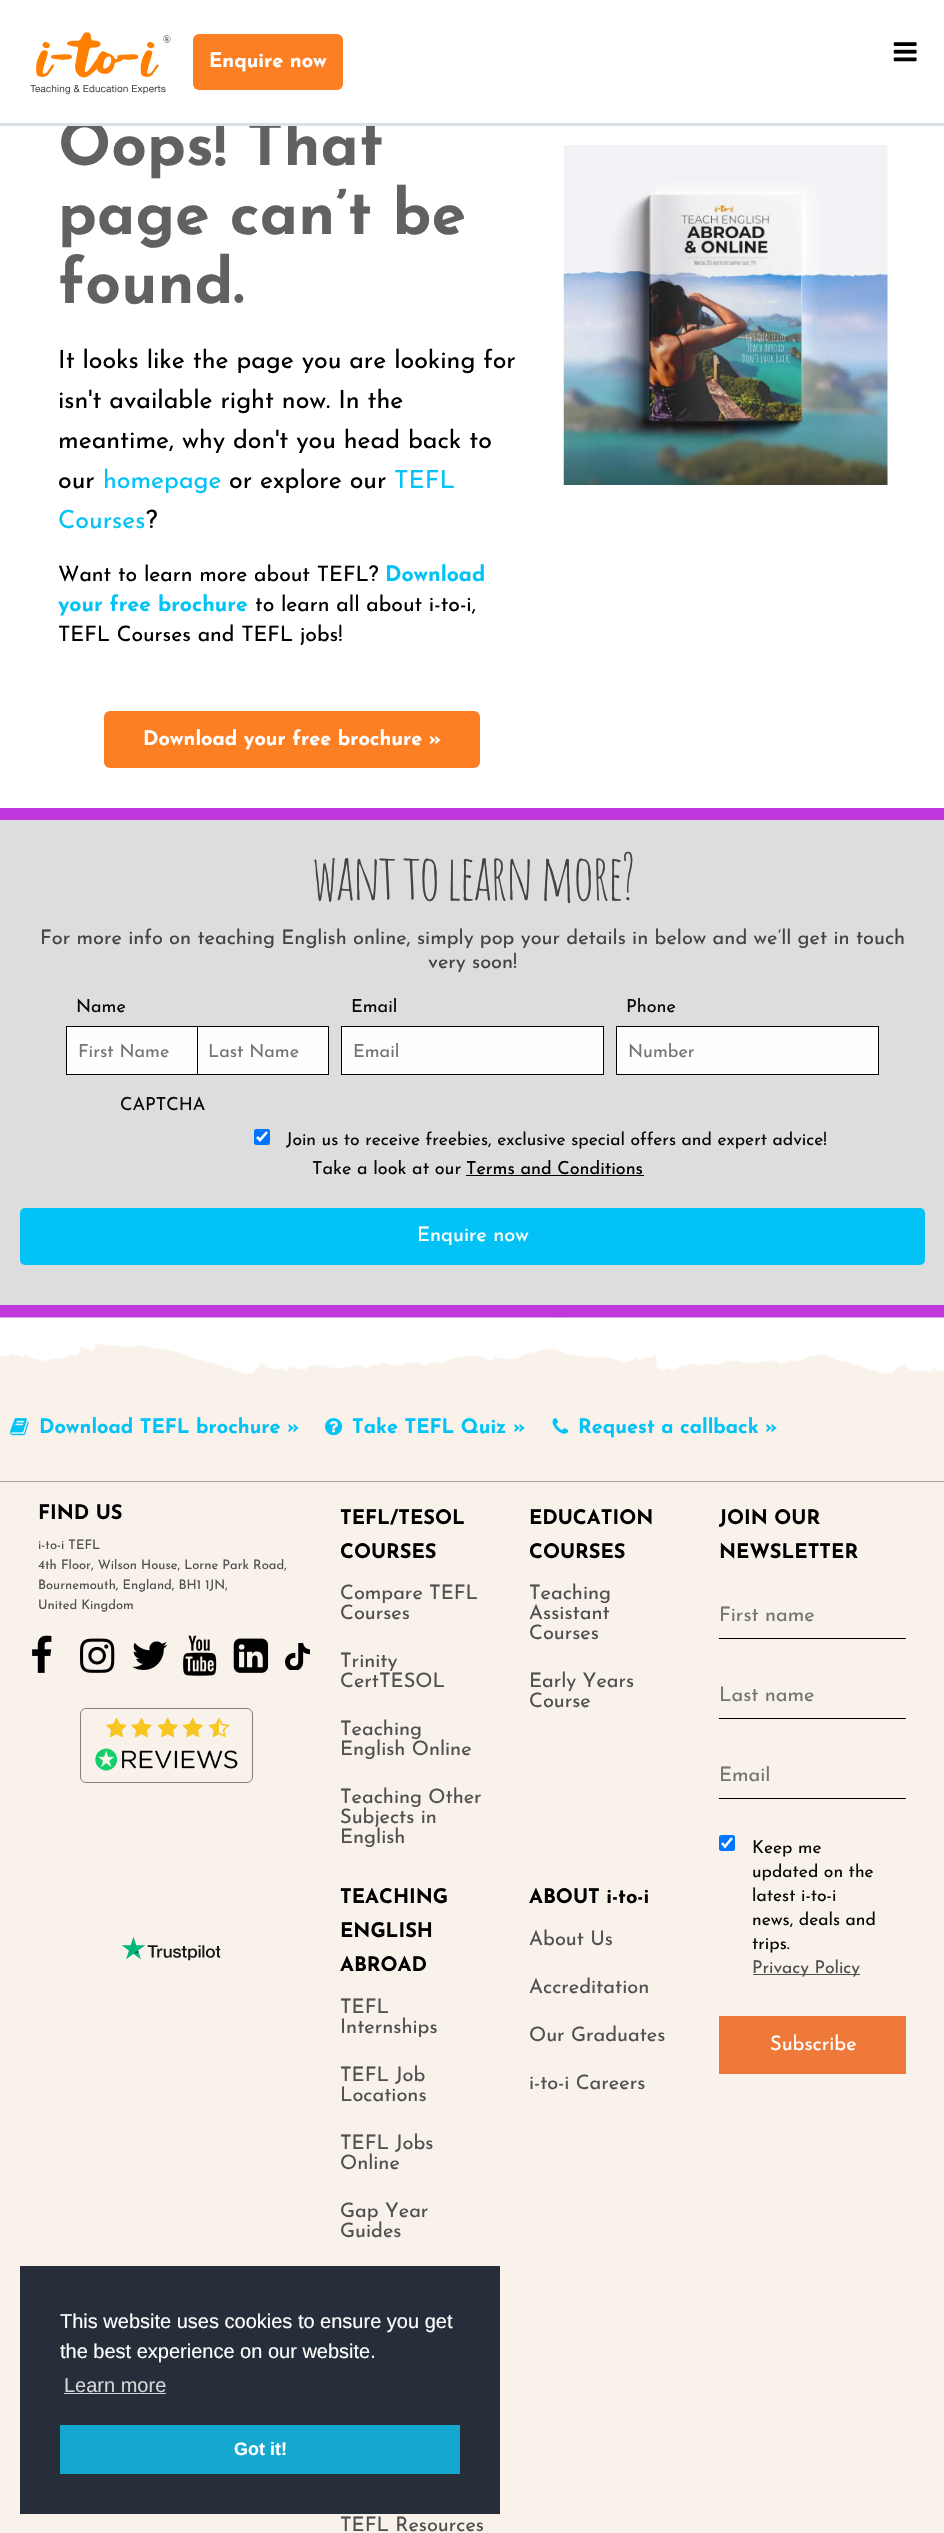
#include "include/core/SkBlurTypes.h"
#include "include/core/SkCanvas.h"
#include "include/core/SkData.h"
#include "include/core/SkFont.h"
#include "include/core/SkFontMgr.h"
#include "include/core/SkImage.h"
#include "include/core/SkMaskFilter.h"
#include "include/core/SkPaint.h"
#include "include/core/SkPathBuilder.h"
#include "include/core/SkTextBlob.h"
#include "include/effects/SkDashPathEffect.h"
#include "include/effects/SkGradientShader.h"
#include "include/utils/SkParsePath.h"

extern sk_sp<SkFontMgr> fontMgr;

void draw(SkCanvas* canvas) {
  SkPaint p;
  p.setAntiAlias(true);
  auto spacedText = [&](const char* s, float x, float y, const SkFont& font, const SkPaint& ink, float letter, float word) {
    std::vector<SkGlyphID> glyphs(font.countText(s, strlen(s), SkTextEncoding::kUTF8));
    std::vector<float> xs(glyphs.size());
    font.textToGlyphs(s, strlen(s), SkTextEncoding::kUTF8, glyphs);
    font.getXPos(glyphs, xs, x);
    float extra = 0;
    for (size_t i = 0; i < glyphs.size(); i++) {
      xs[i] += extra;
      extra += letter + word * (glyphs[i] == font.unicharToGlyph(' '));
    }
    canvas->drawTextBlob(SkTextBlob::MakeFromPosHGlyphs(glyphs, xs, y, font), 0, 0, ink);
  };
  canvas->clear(SK_ColorWHITE);
  canvas->drawImageRect(SkImages::DeferredFromEncodedData(SkData::MakeFromFileName("images/1.png")), SkRect::MakeLTRB(30, 32, 171, 95), SkSamplingOptions());
  p.setColor(SkColorSetRGB(252, 127, 36));
  canvas->drawRoundRect(SkRect::MakeLTRB(193, 34, 343, 90), 6, 6, p);
  canvas->drawImageRect(SkImages::DeferredFromEncodedData(SkData::MakeFromFileName("images/2.png")), SkRect::MakeLTRB(893, 42, 917, 62), SkSamplingOptions());
  canvas->drawRoundRect(SkRect::MakeLTRB(104, 711, 480, 768), 6, 6, p);
  canvas->drawImageRect(SkImages::DeferredFromEncodedData(SkData::MakeFromFileName("images/3.png")), SkRect::MakeLTRB(563, 145, 888, 485), SkSamplingOptions());
  p.setColor(SkColorSetRGB(221, 221, 221));
  canvas->drawRect(SkRect::MakeLTRB(0, 820, 944, 1305), p);
  p.setColor(SkColorSetRGB(193, 55, 222));
  canvas->drawRect(SkRect::MakeLTRB(0, 808, 944, 820), p);
  canvas->drawRect(SkRect::MakeLTRB(0, 1305, 944, 1318), p);
  p.setColor(SkColorSetRGB(254, 254, 254));
  canvas->drawRect(SkRect::MakeLTRB(66.5f, 1026.5f, 197.5f, 1074.5f), p);
  p.setStyle(SkPaint::kStroke_Style);
  p.setStrokeWidth(1);
  p.setColor(SK_ColorBLACK);
  canvas->drawRect(SkRect::MakeLTRB(66.5f, 1026.5f, 197.5f, 1074.5f), p);
  p.setStyle(SkPaint::kFill_Style);
  p.setColor(SkColorSetRGB(254, 254, 254));
  canvas->drawRect(SkRect::MakeLTRB(198, 1027, 328, 1074), p);
  p.setColor(SK_ColorBLACK);
  canvas->drawRect(SkRect::MakeLTRB(198, 1026, 329, 1027), p);
  canvas->drawRect(SkRect::MakeLTRB(328, 1026, 329, 1075), p);
  canvas->drawRect(SkRect::MakeLTRB(198, 1074, 329, 1075), p);
  p.setColor(SkColorSetRGB(254, 254, 254));
  canvas->drawRect(SkRect::MakeLTRB(341.5f, 1026.5f, 603.5f, 1074.5f), p);
  p.setStyle(SkPaint::kStroke_Style);
  p.setColor(SK_ColorBLACK);
  canvas->drawRect(SkRect::MakeLTRB(341.5f, 1026.5f, 603.5f, 1074.5f), p);
  p.setStyle(SkPaint::kFill_Style);
  p.setColor(SkColorSetRGB(254, 254, 254));
  canvas->drawRect(SkRect::MakeLTRB(616.5f, 1026.5f, 878.5f, 1074.5f), p);
  p.setStyle(SkPaint::kStroke_Style);
  p.setColor(SK_ColorBLACK);
  canvas->drawRect(SkRect::MakeLTRB(616.5f, 1026.5f, 878.5f, 1074.5f), p);
  p.setStyle(SkPaint::kFill_Style);
  p.setColor(SkColorSetRGB(0, 117, 255));
  canvas->drawRoundRect(SkRect::MakeLTRB(254, 1129, 270, 1145), 2.5f, 2.5f, p);
  p.setStyle(SkPaint::kStroke_Style);
  p.setStrokeWidth(2.6f);
  p.setColor(SK_ColorWHITE);
  canvas->drawPath(SkPathBuilder().moveTo(257, 1137).lineTo(260, 1140).lineTo(267, 1132).detach(), p);
  p.setStyle(SkPaint::kFill_Style);
  p.setColor(SK_ColorBLACK);
  canvas->drawRect(SkRect::MakeLTRB(466, 1175, 644, 1176), p);
  p.setColor(SkColorSetRGB(3, 195, 246));
  canvas->drawRoundRect(SkRect::MakeLTRB(20, 1208, 925, 1265), 5, 5, p);
  p.setColor(SkColorSetRGB(249, 242, 235));
  canvas->drawRect(SkRect::MakeLTRB(0, 1318, 944, 2533), p);
  canvas->drawImageRect(SkImages::DeferredFromEncodedData(SkData::MakeFromFileName("images/4.png")), SkRect::MakeLTRB(0, 1317, 944, 1374), SkSamplingOptions());
  p.setColor(SkColorSetRGB(162, 161, 161));
  canvas->drawRect(SkRect::MakeLTRB(0, 1481, 944, 1482), p);
  canvas->drawImageRect(SkImages::DeferredFromEncodedData(SkData::MakeFromFileName("images/5.png")), SkRect::MakeLTRB(10, 1418, 29, 1436), SkSamplingOptions());
  canvas->drawImageRect(SkImages::DeferredFromEncodedData(SkData::MakeFromFileName("images/6.png")), SkRect::MakeLTRB(325, 1418, 343, 1436), SkSamplingOptions());
  canvas->drawImageRect(SkImages::DeferredFromEncodedData(SkData::MakeFromFileName("images/7.png")), SkRect::MakeLTRB(552, 1418, 569, 1434), SkSamplingOptions());
  canvas->drawImageRect(SkImages::DeferredFromEncodedData(SkData::MakeFromFileName("images/8.png")), SkRect::MakeLTRB(32, 1635, 52, 1673), SkSamplingOptions());
  canvas->drawImageRect(SkImages::DeferredFromEncodedData(SkData::MakeFromFileName("images/9.png")), SkRect::MakeLTRB(80, 1638, 115, 1673), SkSamplingOptions());
  canvas->drawImageRect(SkImages::DeferredFromEncodedData(SkData::MakeFromFileName("images/10.png")), SkRect::MakeLTRB(132, 1641, 168, 1670), SkSamplingOptions());
  canvas->drawImageRect(SkImages::DeferredFromEncodedData(SkData::MakeFromFileName("images/11.png")), SkRect::MakeLTRB(183, 1635, 217, 1676), SkSamplingOptions());
  canvas->drawImageRect(SkImages::DeferredFromEncodedData(SkData::MakeFromFileName("images/12.png")), SkRect::MakeLTRB(233, 1638, 269, 1673), SkSamplingOptions());
  canvas->drawImageRect(SkImages::DeferredFromEncodedData(SkData::MakeFromFileName("images/13.png")), SkRect::MakeLTRB(285, 1643, 310, 1670), SkSamplingOptions());
  p.setStyle(SkPaint::kStroke_Style);
  p.setStrokeWidth(1);
  p.setColor(SkColorSetRGB(130, 129, 129));
  canvas->drawRoundRect(SkRect::MakeLTRB(80.5f, 1708.5f, 252.5f, 1782.5f), 5.5f, 5.5f, p);
  canvas->drawImageRect(SkImages::DeferredFromEncodedData(SkData::MakeFromFileName("images/14.png")), SkRect::MakeLTRB(106, 1717, 127, 1738), SkSamplingOptions());
  canvas->drawImageRect(SkImages::DeferredFromEncodedData(SkData::MakeFromFileName("images/14.png")), SkRect::MakeLTRB(131, 1717, 152, 1738), SkSamplingOptions());
  canvas->drawImageRect(SkImages::DeferredFromEncodedData(SkData::MakeFromFileName("images/15.png")), SkRect::MakeLTRB(157, 1717, 178, 1738), SkSamplingOptions());
  canvas->drawImageRect(SkImages::DeferredFromEncodedData(SkData::MakeFromFileName("images/15.png")), SkRect::MakeLTRB(182, 1717, 203, 1738), SkSamplingOptions());
  canvas->drawImageRect(SkImages::DeferredFromEncodedData(SkData::MakeFromFileName("images/16.png")), SkRect::MakeLTRB(208, 1717, 230, 1738), SkSamplingOptions());
  canvas->drawImageRect(SkImages::DeferredFromEncodedData(SkData::MakeFromFileName("images/17.png")), SkRect::MakeLTRB(95, 1748, 238, 1771), SkSamplingOptions());
  canvas->drawImageRect(SkImages::DeferredFromEncodedData(SkData::MakeFromFileName("images/18.png")), SkRect::MakeLTRB(121, 1937, 221, 1961), SkSamplingOptions());
  p.setStyle(SkPaint::kFill_Style);
  p.setColor(SK_ColorBLACK);
  canvas->drawRect(SkRect::MakeLTRB(719, 1638, 906, 1639), p);
  canvas->drawRect(SkRect::MakeLTRB(719, 1718, 906, 1719), p);
  canvas->drawRect(SkRect::MakeLTRB(719, 1798, 906, 1799), p);
  p.setColor(SkColorSetRGB(0, 117, 255));
  canvas->drawRoundRect(SkRect::MakeLTRB(719, 1835, 735, 1851), 2.5f, 2.5f, p);
  p.setStyle(SkPaint::kStroke_Style);
  p.setStrokeWidth(2.6f);
  p.setColor(SK_ColorWHITE);
  canvas->drawPath(SkPathBuilder().moveTo(722, 1843).lineTo(725, 1846.5f).lineTo(732, 1838).detach(), p);
  p.setStyle(SkPaint::kFill_Style);
  p.setColor(SkColorSetRGB(80, 80, 80));
  canvas->drawRect(SkRect::MakeLTRB(753, 1974, 860, 1975), p);
  p.setColor(SkColorSetRGB(239, 121, 57));
  canvas->drawRect(SkRect::MakeLTRB(719, 2016, 906, 2074), p);
  p.setColor(SkColorSetRGB(37, 46, 57));
  canvas->drawRect(SkRect::MakeLTRB(20, 2266, 500, 2514), p);
  p.setColor(SkColorSetRGB(211, 213, 215));
  canvas->drawRect(SkRect::MakeLTRB(64, 2393, 166, 2394), p);
  p.setColor(SkColorSetRGB(20, 167, 208));
  canvas->drawRect(SkRect::MakeLTRB(60, 2425, 460, 2474), p);
  SkFont font1(fontMgr->matchFamilyStyle("Josefin Sans", SkFontStyle::Bold()), 20);
  font1.setSubpixel(true);
  p.setColor(SK_ColorWHITE);
  canvas->drawString("Enquire now", 209, 67, font1, p);
  SkFont font2(fontMgr->matchFamilyStyle("Josefin Sans", SkFontStyle::Bold()), 62.5f);
  font2.setSubpixel(true);
  p.setColor(SkColorSetRGB(98, 97, 97));
  canvas->drawString("Oops! That", 58, 165, font2, p);
  p.setColor(SkColorSetRGB(219, 224, 228));
  canvas->drawRect(SkRect::MakeLTRB(0, 123, 944, 126), p);
  p.setColor(SK_ColorWHITE);
  canvas->drawRect(SkRect::MakeLTRB(71, 115, 297, 123), p);
  p.setColor(SkColorSetRGB(98, 97, 97));
  canvas->drawString("page can’t be", 58, 234, font2, p);
  canvas->drawString("found.", 58, 303, font2, p);
  SkFont font3(fontMgr->matchFamilyStyle("Josefin Sans", SkFontStyle::Normal()), 25);
  font3.setSubpixel(true);
  p.setColor(SK_ColorBLACK);
  canvas->drawString("It looks like the page you are looking for", 58, 368, font3, p);
  canvas->drawString("isn't available right now. In the", 58, 408, font3, p);
  canvas->drawString("meantime, why don't you head back to", 58, 448, font3, p);
  canvas->drawString("our", 58, 488, font3, p);
  p.setColor(SkColorSetRGB(3, 195, 246));
  canvas->drawString("homepage", 103, 488, font3, p);
  p.setColor(SK_ColorBLACK);
  canvas->drawString("or explore our", 229, 488, font3, p);
  p.setColor(SkColorSetRGB(3, 195, 246));
  canvas->drawString("TEFL", 394, 488, font3, p);
  canvas->drawString("Courses", 58, 528, font3, p);
  p.setColor(SK_ColorBLACK);
  canvas->drawString("?", 146, 528, font3, p);
  SkFont font4(fontMgr->matchFamilyStyle("Josefin Sans", SkFontStyle::Normal()), 21.25f);
  font4.setSubpixel(true);
  canvas->drawString("Want to learn more about TEFL?", 58, 581, font4, p);
  SkFont font5(fontMgr->matchFamilyStyle("Josefin Sans", SkFontStyle::Bold()), 21.25f);
  font5.setSubpixel(true);
  p.setColor(SkColorSetRGB(3, 195, 246));
  canvas->drawString("Download", 385, 581, font5, p);
  canvas->drawString("your free brochure", 58, 611, font5, p);
  p.setColor(SK_ColorBLACK);
  canvas->drawString("to learn all about i-to-i,", 255, 611, font4, p);
  canvas->drawString("TEFL Courses and TEFL jobs!", 58, 641, font4, p);
  p.setColor(SK_ColorWHITE);
  canvas->drawString("Download your free brochure »", 143, 745, font1, p);
  SkFont font6(fontMgr->matchFamilyStyle("Amatic SC", SkFontStyle::Normal()), 62.5f);
  font6.setSubpixel(true);
  p.setColor(SkColorSetRGB(67, 67, 67));
  spacedText("want to learn more?", 312, 900, font6, p, -2.5f, 0);
  SkFont font7(fontMgr->matchFamilyStyle("Josefin Sans", SkFontStyle::Normal()), 20);
  font7.setSubpixel(true);
  canvas->drawString("For more info on teaching English online, simply pop your details in below and we’ll get in touch", 40, 944, font7, p);
  canvas->drawString("very soon!", 428, 968, font7, p);
  SkFont font8(fontMgr->matchFamilyStyle("Josefin Sans", SkFontStyle::Normal()), 18);
  font8.setSubpixel(true);
  p.setColor(SkColorSetRGB(10, 10, 10));
  canvas->drawString("Name", 76, 1012, font8, p);
  p.setColor(SkColorSetRGB(117, 117, 117));
  canvas->drawString("First Name", 78, 1057, font8, p);
  canvas->drawString("Last Name", 208, 1057, font8, p);
  p.setColor(SkColorSetRGB(10, 10, 10));
  canvas->drawString("Email", 351, 1012, font8, p);
  p.setColor(SkColorSetRGB(117, 117, 117));
  canvas->drawString("Email", 353, 1057, font8, p);
  p.setColor(SkColorSetRGB(10, 10, 10));
  canvas->drawString("Phone", 626, 1012, font8, p);
  p.setColor(SkColorSetRGB(117, 117, 117));
  canvas->drawString("Number", 628, 1057, font8, p);
  p.setColor(SkColorSetRGB(10, 10, 10));
  canvas->drawString("CAPTCHA", 120, 1110, font8, p);
  SkFont font9(fontMgr->matchFamilyStyle("Josefin Sans", SkFontStyle::Normal()), 17.5f);
  font9.setSubpixel(true);
  canvas->drawString("Join us to receive freebies, exclusive special offers and expert advice!", 286, 1145, font9, p);
  canvas->drawString("Take a look at our", 312, 1174, font8, p);
  p.setColor(SK_ColorBLACK);
  canvas->drawString("Terms and Conditions", 466, 1174, font8, p);
  p.setColor(SK_ColorWHITE);
  canvas->drawString("Enquire now", 417, 1241, font7, p);
  p.setColor(SkColorSetRGB(3, 195, 246));
  canvas->drawString("Download TEFL brochure »", 39, 1433, font1, p);
  canvas->drawString("Take TEFL Quiz »", 352, 1433, font1, p);
  canvas->drawString("Request a callback »", 578, 1433, font1, p);
  p.setColor(SK_ColorBLACK);
  canvas->drawString("FIND US", 38, 1519, font1, p);
  SkFont font10(fontMgr->matchFamilyStyle("Josefin Sans", SkFontStyle::Normal()), 13);
  font10.setSubpixel(true);
  p.setColor(SkColorSetRGB(80, 80, 80));
  canvas->drawString("i-to-i TEFL", 38, 1549, font10, p);
  canvas->drawString("4th Floor, Wilson House, Lorne Park Road,", 38, 1569, font10, p);
  canvas->drawString("Bournemouth, England, BH1 1JN,", 38, 1589, font10, p);
  canvas->drawString("United Kingdom", 38, 1609, font10, p);
  p.setColor(SK_ColorBLACK);
  canvas->drawString("TEFL/TESOL", 340, 1524, font1, p);
  canvas->drawString("COURSES", 340, 1558, font1, p);
  p.setColor(SkColorSetRGB(80, 80, 80));
  canvas->drawString("Compare TEFL", 340, 1599, font7, p);
  canvas->drawString("Courses", 340, 1619, font7, p);
  canvas->drawString("Trinity", 340, 1667, font7, p);
  canvas->drawString("CertTESOL", 340, 1687, font7, p);
  canvas->drawString("Teaching", 340, 1735, font7, p);
  canvas->drawString("English Online", 340, 1755, font7, p);
  canvas->drawString("Teaching Other", 340, 1803, font7, p);
  canvas->drawString("Subjects in", 340, 1823, font7, p);
  canvas->drawString("English", 340, 1843, font7, p);
  p.setColor(SK_ColorBLACK);
  canvas->drawString("EDUCATION", 529, 1524, font1, p);
  canvas->drawString("COURSES", 529, 1558, font1, p);
  p.setColor(SkColorSetRGB(80, 80, 80));
  canvas->drawString("Teaching", 529, 1599, font7, p);
  canvas->drawString("Assistant", 529, 1619, font7, p);
  canvas->drawString("Courses", 529, 1639, font7, p);
  canvas->drawString("Early Years", 529, 1687, font7, p);
  canvas->drawString("Course", 529, 1707, font7, p);
  p.setColor(SK_ColorBLACK);
  canvas->drawString("TEACHING", 340, 1903, font1, p);
  canvas->drawString("ENGLISH", 340, 1937, font1, p);
  canvas->drawString("ABROAD", 340, 1971, font1, p);
  p.setColor(SkColorSetRGB(80, 80, 80));
  canvas->drawString("TEFL", 340, 2013, font7, p);
  canvas->drawString("Internships", 340, 2033, font7, p);
  canvas->drawString("TEFL Job", 340, 2081, font7, p);
  canvas->drawString("Locations", 340, 2101, font7, p);
  canvas->drawString("TEFL Jobs", 340, 2149, font7, p);
  canvas->drawString("Online", 340, 2169, font7, p);
  canvas->drawString("Gap Year", 340, 2217, font7, p);
  canvas->drawString("Guides", 340, 2237, font7, p);
  p.setColor(SK_ColorBLACK);
  canvas->drawString("ABOUT i-to-i", 529, 1903, font1, p);
  p.setColor(SkColorSetRGB(80, 80, 80));
  canvas->drawString("About Us", 529, 1945, font7, p);
  canvas->drawString("Accreditation", 529, 1993, font7, p);
  canvas->drawString("Our Graduates", 529, 2041, font7, p);
  canvas->drawString("i-to-i Careers", 529, 2089, font7, p);
  canvas->drawString("TEFL Resources", 340, 2531, font7, p);
  p.setColor(SK_ColorBLACK);
  canvas->drawString("JOIN OUR", 719, 1524, font1, p);
  canvas->drawString("NEWSLETTER", 719, 1558, font1, p);
  p.setColor(SkColorSetRGB(117, 117, 117));
  canvas->drawString("First name", 719, 1621, font7, p);
  canvas->drawString("Last name", 719, 1701, font7, p);
  canvas->save();
  canvas->clipRect(SkRect::MakeLTRB(719, 1766, 906, 1786));
  canvas->drawString("Email", 719, 1781, font7, p);
  canvas->restore();
  p.setColor(SkColorSetRGB(10, 10, 10));
  canvas->drawString("Keep me", 752, 1853, font9, p);
  canvas->drawString("updated on the", 752, 1877, font9, p);
  canvas->drawString("latest i-to-i", 752, 1901, font9, p);
  canvas->drawString("news, deals and", 752, 1925, font9, p);
  canvas->drawString("trips.", 752, 1949, font9, p);
  p.setColor(SkColorSetRGB(80, 80, 80));
  canvas->drawString("Privacy Policy", 752, 1973, font9, p);
  p.setColor(SK_ColorWHITE);
  canvas->drawString("Subscribe", 770, 2050, font7, p);
  SkFont font11(fontMgr->matchFamilyStyle("Liberation Sans", SkFontStyle::Normal()), 20);
  font11.setSubpixel(true);
  canvas->drawString("This website uses cookies to ensure you get", 60, 2328, font11, p);
  canvas->drawString("the best experience on our website.", 60, 2358, font11, p);
  p.setColor(SkColorSetRGB(211, 213, 215));
  canvas->drawString("Learn more", 64, 2392, font11, p);
  SkFont font12(fontMgr->matchFamilyStyle("Liberation Sans", SkFontStyle::Bold()), 18);
  font12.setSubpixel(true);
  p.setColor(SK_ColorWHITE);
  canvas->drawString("Got it!", 234, 2455, font12, p);
}
